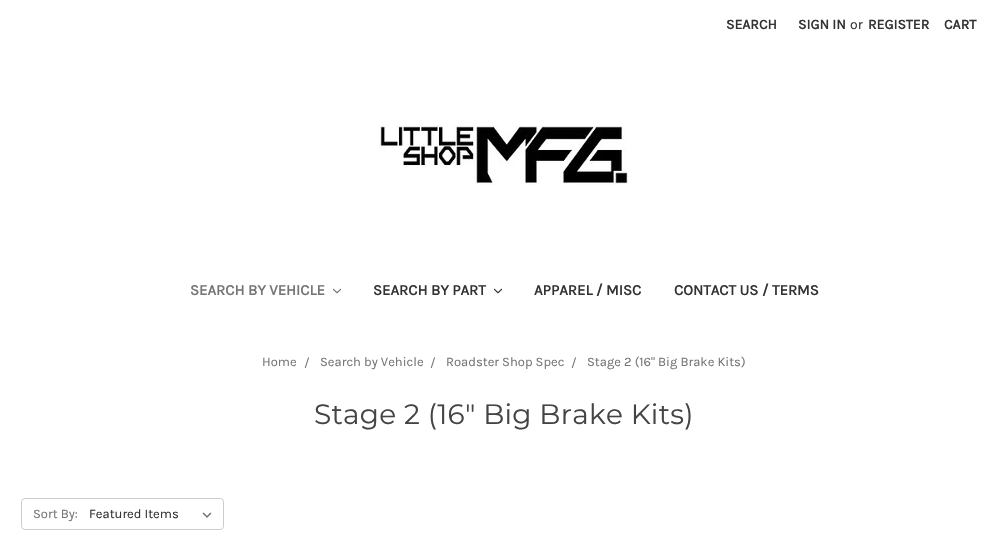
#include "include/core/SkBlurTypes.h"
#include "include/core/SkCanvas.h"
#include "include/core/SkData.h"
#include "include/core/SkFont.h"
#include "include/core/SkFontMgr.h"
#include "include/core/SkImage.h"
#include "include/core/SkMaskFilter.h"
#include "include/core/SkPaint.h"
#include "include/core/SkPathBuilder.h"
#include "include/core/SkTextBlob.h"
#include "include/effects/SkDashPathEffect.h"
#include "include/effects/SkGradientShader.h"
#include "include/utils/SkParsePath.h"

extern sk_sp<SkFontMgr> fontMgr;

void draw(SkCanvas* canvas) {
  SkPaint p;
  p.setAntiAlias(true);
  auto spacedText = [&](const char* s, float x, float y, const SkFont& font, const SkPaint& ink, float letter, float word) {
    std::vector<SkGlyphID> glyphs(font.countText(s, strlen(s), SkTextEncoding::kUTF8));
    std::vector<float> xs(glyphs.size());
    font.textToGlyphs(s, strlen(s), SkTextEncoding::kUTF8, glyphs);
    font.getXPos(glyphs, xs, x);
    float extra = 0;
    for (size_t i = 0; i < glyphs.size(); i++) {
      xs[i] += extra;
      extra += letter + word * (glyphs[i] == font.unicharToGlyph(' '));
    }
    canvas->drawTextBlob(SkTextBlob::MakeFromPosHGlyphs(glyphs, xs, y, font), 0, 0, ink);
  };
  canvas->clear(SK_ColorWHITE);
  canvas->drawImageRect(SkImages::DeferredFromEncodedData(SkData::MakeFromFileName("images/1.png")), SkRect::MakeLTRB(379, 125, 628, 185), SkSamplingOptions());
  canvas->drawImageRect(SkImages::DeferredFromEncodedData(SkData::MakeFromFileName("images/2.png")), SkRect::MakeLTRB(333, 288, 341, 294), SkSamplingOptions());
  canvas->drawImageRect(SkImages::DeferredFromEncodedData(SkData::MakeFromFileName("images/3.png")), SkRect::MakeLTRB(494, 288, 502, 294), SkSamplingOptions());
  p.setStyle(SkPaint::kStroke_Style);
  p.setStrokeWidth(1);
  p.setColor(SkColorSetRGB(204, 204, 204));
  canvas->drawRoundRect(SkRect::MakeLTRB(21.5f, 498.5f, 223.5f, 529.5f), 3.5f, 3.5f, p);
  canvas->save();
  canvas->clipPath(SkPathBuilder().moveTo(25, 499).lineTo(220, 499).cubicTo(221.5f, 499, 223, 500.5f, 223, 502).lineTo(223, 526).cubicTo(223, 527.5f, 221.5f, 529, 220, 529).lineTo(25, 529).cubicTo(23.5f, 529, 22, 527.5f, 22, 526).lineTo(22, 502).cubicTo(22, 500.5f, 23.5f, 499, 25, 499).close().detach(), true);
  p.setStyle(SkPaint::kFill_Style);
  p.setColor(SK_ColorWHITE);
  canvas->drawRoundRect(SkRect::MakeLTRB(86, 499, 223, 529), 4, 4, p);
  canvas->restore();
  canvas->drawImageRect(SkImages::DeferredFromEncodedData(SkData::MakeFromFileName("images/4.png")), SkRect::MakeLTRB(202, 512, 212, 518), SkSamplingOptions());
  SkFont font1(fontMgr->matchFamilyStyle("Karla", SkFontStyle::Bold()), 14);
  font1.setSubpixel(true);
  p.setColor(SkColorSetRGB(51, 51, 51));
  canvas->drawString("SEARCH", 726, 29, font1, p);
  canvas->drawString("SIGN IN", 798, 29, font1, p);
  SkFont font2(fontMgr->matchFamilyStyle("Karla", SkFontStyle::Normal()), 14);
  font2.setSubpixel(true);
  canvas->drawString("or", 850, 29, font2, p);
  canvas->drawString("REGISTER", 868, 29, font1, p);
  canvas->drawString("CART", 944, 29, font1, p);
  SkFont font3(fontMgr->matchFamilyStyle("Karla", SkFontStyle::Bold()), 15);
  font3.setSubpixel(true);
  p.setColor(SkColorSetRGB(117, 117, 117));
  canvas->drawString("SEARCH BY VEHICLE", 190, 295, font3, p);
  p.setColor(SkColorSetRGB(51, 51, 51));
  canvas->drawString("SEARCH BY PART", 373, 295, font3, p);
  canvas->drawString("APPAREL / MISC", 534, 295, font3, p);
  canvas->drawString("CONTACT US / TERMS", 674, 295, font3, p);
  SkFont font4(fontMgr->matchFamilyStyle("Karla", SkFontStyle::Normal()), 13);
  font4.setSubpixel(true);
  p.setColor(SkColorSetRGB(117, 117, 117));
  canvas->drawString("Home", 262, 366, font4, p);
  canvas->drawString("/", 304, 367, font4, p);
  canvas->drawString("Search by Vehicle", 320, 366, font4, p);
  canvas->drawString("/", 430, 367, font4, p);
  canvas->drawString("Roadster Shop Spec", 446, 366, font4, p);
  canvas->drawString("/", 571, 367, font4, p);
  canvas->drawString("Stage 2 (16\" Big Brake Kits)", 587, 366, font4, p);
  SkFont font5(fontMgr->matchFamilyStyle("Montserrat", SkFontStyle(100, SkFontStyle::kNormal_Width, SkFontStyle::kUpright_Slant)), 28);
  font5.setSubpixel(true);
  p.setColor(SkColorSetRGB(68, 68, 68));
  spacedText("Stage 2 (16\" Big Brake Kits)", 314, 424, font5, p, 0.25f, 0);
  p.setColor(SkColorSetRGB(117, 117, 117));
  canvas->drawString("Sort By:", 33, 518, font4, p);
  p.setColor(SkColorSetRGB(51, 51, 51));
  canvas->drawString("Featured Items", 89, 518, font4, p);
}
